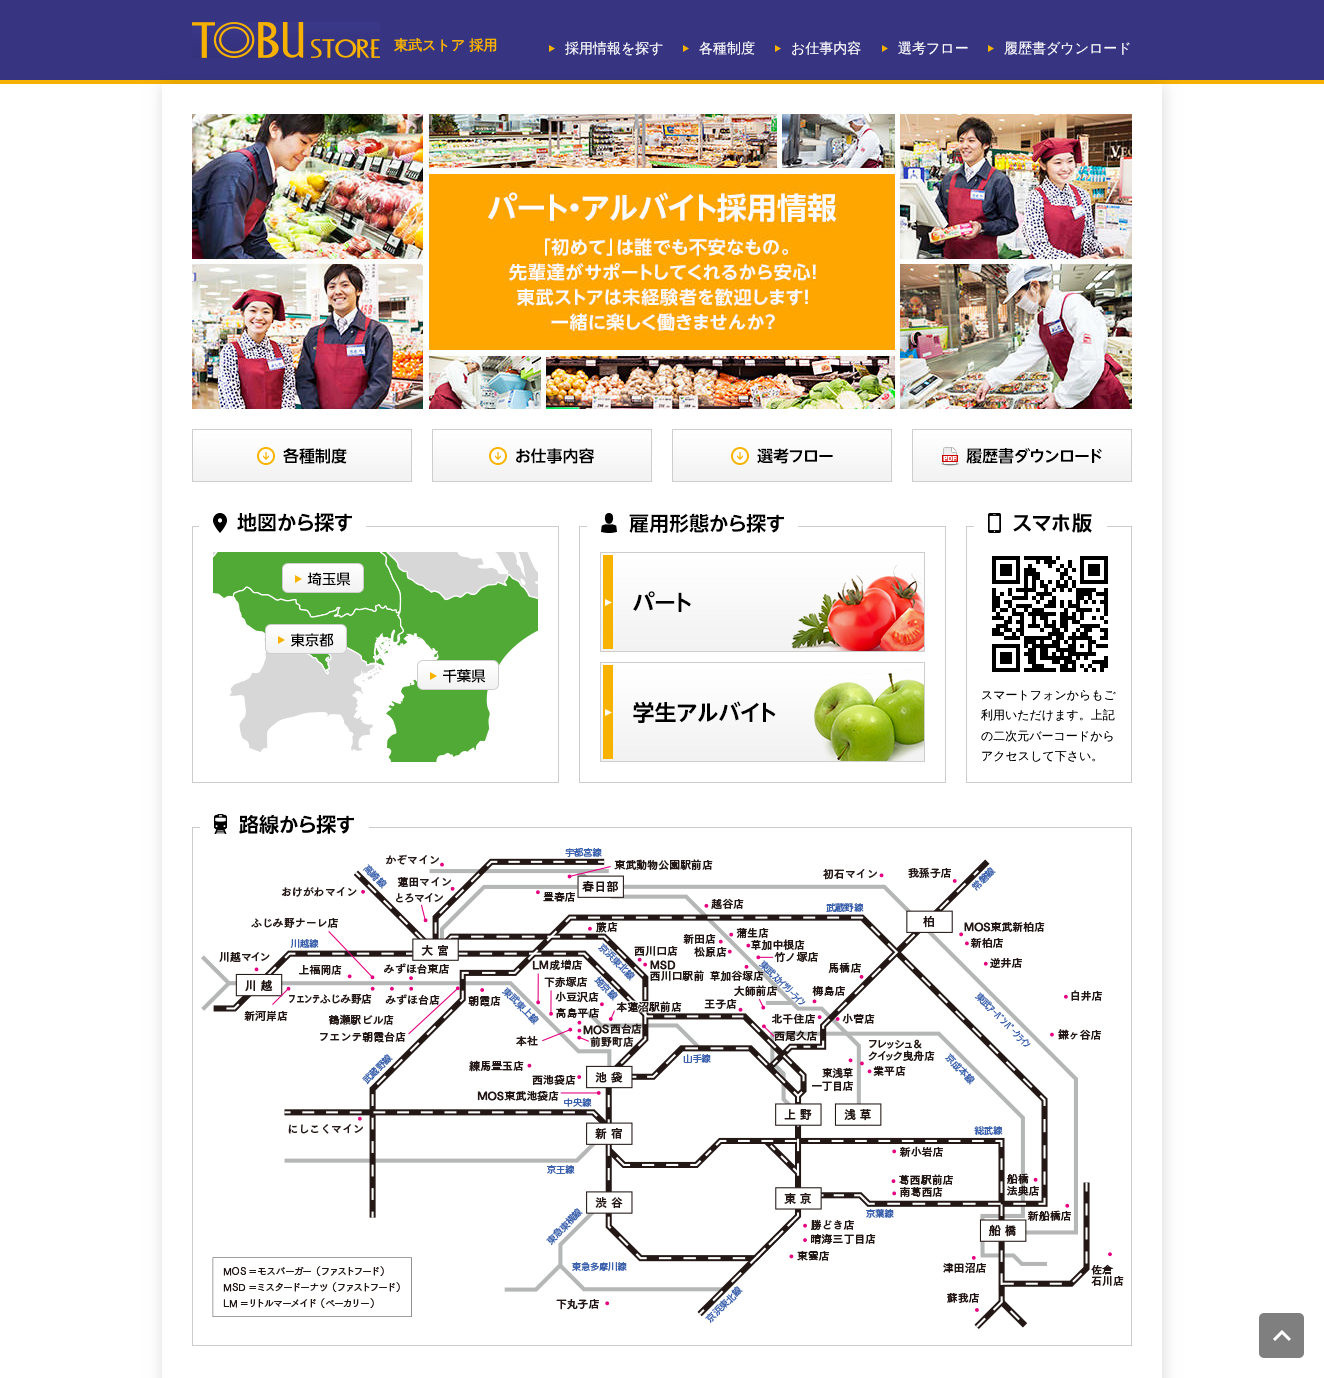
#include "include/core/SkBlurTypes.h"
#include "include/core/SkCanvas.h"
#include "include/core/SkData.h"
#include "include/core/SkFont.h"
#include "include/core/SkFontMgr.h"
#include "include/core/SkImage.h"
#include "include/core/SkMaskFilter.h"
#include "include/core/SkPaint.h"
#include "include/core/SkPathBuilder.h"
#include "include/core/SkTextBlob.h"
#include "include/effects/SkDashPathEffect.h"
#include "include/effects/SkGradientShader.h"
#include "include/utils/SkParsePath.h"

extern sk_sp<SkFontMgr> fontMgr;

void draw(SkCanvas* canvas) {
  SkPaint p;
  p.setAntiAlias(true);
  canvas->clear(SK_ColorWHITE);
  p.setColor(SkColorSetRGB(55, 53, 130));
  canvas->drawRect(SkRect::MakeLTRB(0, 0, 1324, 80), p);
  p.setColor(SkColorSetRGB(247, 177, 0));
  canvas->drawRect(SkRect::MakeLTRB(0, 80, 1324, 84), p);
  canvas->drawImageRect(SkImages::DeferredFromEncodedData(SkData::MakeFromFileName("images/1.png")), SkRect::MakeLTRB(192, 22, 380, 58), SkSamplingOptions());
  canvas->drawImageRect(SkImages::DeferredFromEncodedData(SkData::MakeFromFileName("images/2.png")), SkRect::MakeLTRB(549, 45, 555, 52), SkSamplingOptions());
  canvas->drawImageRect(SkImages::DeferredFromEncodedData(SkData::MakeFromFileName("images/2.png")), SkRect::MakeLTRB(683, 45, 689, 52), SkSamplingOptions());
  canvas->drawImageRect(SkImages::DeferredFromEncodedData(SkData::MakeFromFileName("images/2.png")), SkRect::MakeLTRB(775, 45, 781, 52), SkSamplingOptions());
  canvas->drawImageRect(SkImages::DeferredFromEncodedData(SkData::MakeFromFileName("images/2.png")), SkRect::MakeLTRB(882, 45, 888, 52), SkSamplingOptions());
  canvas->drawImageRect(SkImages::DeferredFromEncodedData(SkData::MakeFromFileName("images/2.png")), SkRect::MakeLTRB(988, 45, 994, 52), SkSamplingOptions());
  canvas->save();
  canvas->clipPath(SkPathBuilder(SkPathFillType::kEvenOdd).moveTo(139, 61).lineTo(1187, 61).lineTo(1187, 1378).lineTo(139, 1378).close().moveTo(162, 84).lineTo(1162, 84).lineTo(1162, 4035).lineTo(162, 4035).close().detach(), true);
  p.setColor(SkColorSetARGB(36, 0, 0, 0));
  p.setMaskFilter(SkMaskFilter::MakeBlur(kNormal_SkBlurStyle, 7.5f));
  canvas->drawRect(SkRect::MakeLTRB(163, 85, 1163, 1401), p);
  p.setMaskFilter(nullptr);
  canvas->restore();
  canvas->drawImageRect(SkImages::DeferredFromEncodedData(SkData::MakeFromFileName("images/3.png")), SkRect::MakeLTRB(192, 114, 1132, 409), SkSamplingOptions());
  canvas->drawImageRect(SkImages::DeferredFromEncodedData(SkData::MakeFromFileName("images/4.png")), SkRect::MakeLTRB(192, 429, 412, 482), SkSamplingOptions());
  canvas->drawImageRect(SkImages::DeferredFromEncodedData(SkData::MakeFromFileName("images/5.png")), SkRect::MakeLTRB(432, 429, 652, 482), SkSamplingOptions());
  canvas->drawImageRect(SkImages::DeferredFromEncodedData(SkData::MakeFromFileName("images/6.png")), SkRect::MakeLTRB(672, 429, 892, 482), SkSamplingOptions());
  canvas->drawImageRect(SkImages::DeferredFromEncodedData(SkData::MakeFromFileName("images/7.png")), SkRect::MakeLTRB(912, 429, 1132, 482), SkSamplingOptions());
  p.setStyle(SkPaint::kStroke_Style);
  p.setStrokeWidth(1);
  p.setColor(SkColorSetRGB(204, 204, 204));
  canvas->drawRect(SkRect::MakeLTRB(192.5f, 526.5f, 558.5f, 782.5f), p);
  canvas->drawImageRect(SkImages::DeferredFromEncodedData(SkData::MakeFromFileName("images/8.png")), SkRect::MakeLTRB(213, 552, 538, 762), SkSamplingOptions());
  canvas->drawImageRect(SkImages::DeferredFromEncodedData(SkData::MakeFromFileName("images/9.png")), SkRect::MakeLTRB(199, 513, 366, 533), SkSamplingOptions());
  canvas->drawImageRect(SkImages::DeferredFromEncodedData(SkData::MakeFromFileName("images/10.png")), SkRect::MakeLTRB(282, 563, 364, 593), SkSamplingOptions());
  canvas->drawImageRect(SkImages::DeferredFromEncodedData(SkData::MakeFromFileName("images/11.png")), SkRect::MakeLTRB(265, 624, 347, 654), SkSamplingOptions());
  canvas->drawImageRect(SkImages::DeferredFromEncodedData(SkData::MakeFromFileName("images/12.png")), SkRect::MakeLTRB(417, 660, 499, 690), SkSamplingOptions());
  canvas->drawRect(SkRect::MakeLTRB(579.5f, 526.5f, 945.5f, 782.5f), p);
  canvas->drawImageRect(SkImages::DeferredFromEncodedData(SkData::MakeFromFileName("images/13.png")), SkRect::MakeLTRB(587, 513, 798, 533), SkSamplingOptions());
  canvas->drawImageRect(SkImages::DeferredFromEncodedData(SkData::MakeFromFileName("images/14.png")), SkRect::MakeLTRB(600, 552, 925, 652), SkSamplingOptions());
  canvas->drawImageRect(SkImages::DeferredFromEncodedData(SkData::MakeFromFileName("images/15.png")), SkRect::MakeLTRB(600, 662, 925, 762), SkSamplingOptions());
  canvas->drawRect(SkRect::MakeLTRB(966.5f, 526.5f, 1131.5f, 782.5f), p);
  canvas->drawImageRect(SkImages::DeferredFromEncodedData(SkData::MakeFromFileName("images/16.png")), SkRect::MakeLTRB(974, 513, 1107, 533), SkSamplingOptions());
  canvas->drawImageRect(SkImages::DeferredFromEncodedData(SkData::MakeFromFileName("images/17.png")), SkRect::MakeLTRB(992, 556, 1108, 672), SkSamplingOptions());
  canvas->drawRect(SkRect::MakeLTRB(192.5f, 827.5f, 1131.5f, 1345.5f), p);
  canvas->drawImageRect(SkImages::DeferredFromEncodedData(SkData::MakeFromFileName("images/18.png")), SkRect::MakeLTRB(200, 814, 369, 834), SkSamplingOptions());
  canvas->drawImageRect(SkImages::DeferredFromEncodedData(SkData::MakeFromFileName("images/19.png")), SkRect::MakeLTRB(201, 848, 1124, 1329), SkSamplingOptions());
  canvas->drawImageRect(SkImages::DeferredFromEncodedData(SkData::MakeFromFileName("images/20.png")), SkRect::MakeLTRB(1259, 1313, 1304, 1358), SkSamplingOptions());
  SkFont font1(fontMgr->matchFamilyStyle("WenQuanYi Zen Hei", SkFontStyle::Bold()), 14);
  font1.setSubpixel(true);
  p.setStyle(SkPaint::kFill_Style);
  p.setColor(SkColorSetRGB(247, 177, 0));
  canvas->drawString("東武ストア 採用", 394, 50, font1, p);
  SkFont font2(fontMgr->matchFamilyStyle("WenQuanYi Zen Hei", SkFontStyle(500, SkFontStyle::kNormal_Width, SkFontStyle::kUpright_Slant)), 14);
  font2.setSubpixel(true);
  p.setColor(SK_ColorWHITE);
  canvas->drawString("採用情報を探す", 565, 53, font2, p);
  canvas->drawString("各種制度", 699, 53, font2, p);
  canvas->drawString("お仕事内容", 791, 53, font2, p);
  canvas->drawString("選考フロー", 898, 53, font2, p);
  canvas->drawString("履歴書ダウンロード", 1004, 53, font2, p);
  SkFont font3(fontMgr->matchFamilyStyle("WenQuanYi Zen Hei", SkFontStyle(500, SkFontStyle::kNormal_Width, SkFontStyle::kUpright_Slant)), 12);
  font3.setSubpixel(true);
  p.setColor(SK_ColorBLACK);
  canvas->drawString("スマートフォンからもご", 981, 699, font3, p);
  canvas->drawString("利用いただけます。上記", 981, 719, font3, p);
  canvas->drawString("の二次元バーコードから", 981, 740, font3, p);
  canvas->drawString("アクセスして下さい。", 981, 760, font3, p);
}
